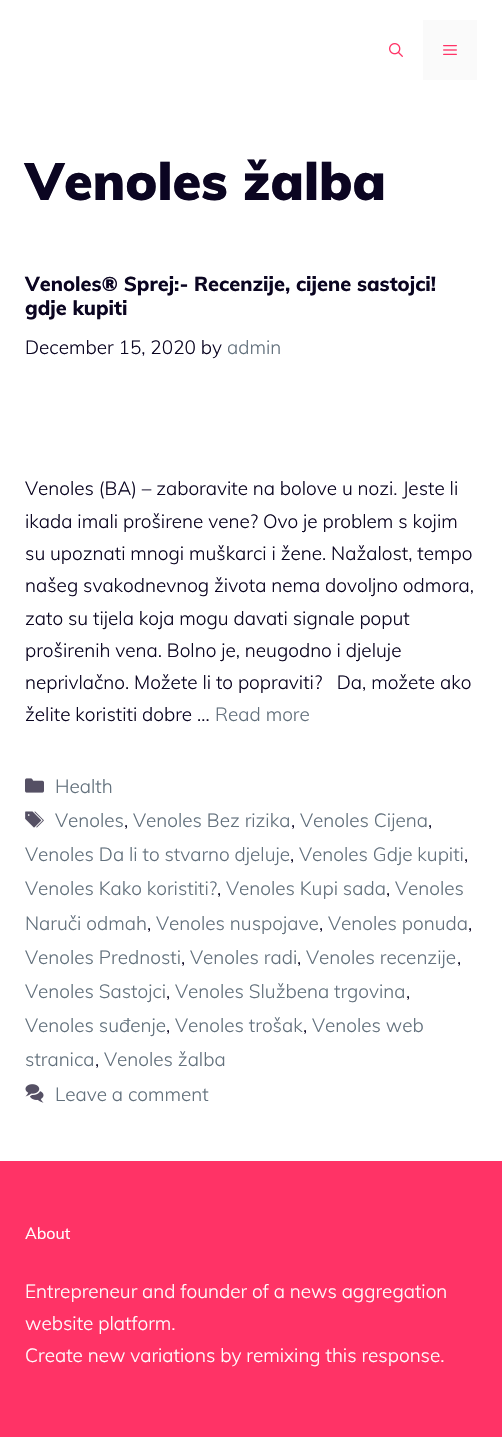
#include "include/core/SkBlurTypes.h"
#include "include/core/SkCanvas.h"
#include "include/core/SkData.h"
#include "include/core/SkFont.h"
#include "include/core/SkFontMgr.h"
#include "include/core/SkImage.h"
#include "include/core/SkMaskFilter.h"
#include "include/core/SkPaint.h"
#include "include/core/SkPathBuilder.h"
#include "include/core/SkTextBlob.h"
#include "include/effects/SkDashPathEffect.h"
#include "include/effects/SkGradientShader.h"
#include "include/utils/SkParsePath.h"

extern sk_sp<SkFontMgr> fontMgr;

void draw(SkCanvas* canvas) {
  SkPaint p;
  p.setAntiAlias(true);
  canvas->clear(SK_ColorWHITE);
  canvas->drawImageRect(SkImages::DeferredFromEncodedData(SkData::MakeFromFileName("images/1.png")), SkRect::MakeLTRB(389, 43, 403, 57), SkSamplingOptions());
  p.setColor(SkColorSetRGB(250, 250, 250));
  canvas->drawRect(SkRect::MakeLTRB(423, 20, 477, 80), p);
  canvas->drawImageRect(SkImages::DeferredFromEncodedData(SkData::MakeFromFileName("images/2.png")), SkRect::MakeLTRB(443, 45, 457, 55), SkSamplingOptions());
  canvas->drawImageRect(SkImages::DeferredFromEncodedData(SkData::MakeFromFileName("images/3.png")), SkRect::MakeLTRB(25, 778, 44, 793), SkSamplingOptions());
  canvas->drawImageRect(SkImages::DeferredFromEncodedData(SkData::MakeFromFileName("images/4.png")), SkRect::MakeLTRB(25, 811, 44, 828), SkSamplingOptions());
  canvas->drawImageRect(SkImages::DeferredFromEncodedData(SkData::MakeFromFileName("images/5.png")), SkRect::MakeLTRB(25, 1084, 44, 1103), SkSamplingOptions());
  p.setColor(SkColorSetRGB(255, 51, 102));
  canvas->drawRect(SkRect::MakeLTRB(0, 1161, 502, 1437), p);
  SkFont font1(fontMgr->matchFamilyStyle("Muli", SkFontStyle(900, SkFontStyle::kNormal_Width, SkFontStyle::kUpright_Slant)), 52);
  font1.setSubpixel(true);
  p.setColor(SkColorSetRGB(11, 5, 33));
  canvas->drawString("Venoles žalba", 25, 200, font1, p);
  SkFont font2(fontMgr->matchFamilyStyle("Muli", SkFontStyle(800, SkFontStyle::kNormal_Width, SkFontStyle::kUpright_Slant)), 20);
  font2.setSubpixel(true);
  canvas->drawString("Venoles® Sprej:- Recenzije, cijene sastojci!", 25, 291, font2, p);
  canvas->drawString("gdje kupiti", 25, 315, font2, p);
  SkFont font3(fontMgr->matchFamilyStyle("Muli", SkFontStyle(300, SkFontStyle::kNormal_Width, SkFontStyle::kUpright_Slant)), 19);
  font3.setSubpixel(true);
  canvas->drawString("December 15, 2020 by", 25, 354, font3, p);
  p.setColor(SkColorSetRGB(98, 112, 124));
  canvas->drawString("admin", 227, 354, font3, p);
  p.setColor(SkColorSetRGB(11, 5, 33));
  canvas->drawString("Venoles (BA) – zaboravite na bolove u nozi. Jeste li", 25, 495, font3, p);
  canvas->drawString("ikada imali proširene vene? Ovo je problem s kojim", 25, 528, font3, p);
  canvas->drawString("su upoznati mnogi muškarci i žene. Nažalost, tempo", 25, 560, font3, p);
  canvas->drawString("našeg svakodnevnog života nema dovoljno odmora,", 25, 592, font3, p);
  canvas->drawString("zato su tijela koja mogu davati signale poput", 25, 625, font3, p);
  canvas->drawString("proširenih vena. Bolno je, neugodno i djeluje", 25, 657, font3, p);
  canvas->drawString("neprivlačno. Možete li to popraviti?   Da, možete ako", 25, 689, font3, p);
  canvas->drawString("želite koristiti dobre …", 25, 721, font3, p);
  p.setColor(SkColorSetRGB(98, 112, 124));
  canvas->drawString("Read more", 215, 721, font3, p);
  canvas->drawString("Health", 55, 793, font3, p);
  canvas->drawString("Venoles", 55, 827, font3, p);
  p.setColor(SkColorSetRGB(11, 5, 33));
  canvas->drawString(",", 124, 827, font3, p);
  p.setColor(SkColorSetRGB(98, 112, 124));
  canvas->drawString("Venoles Bez rizika", 133, 827, font3, p);
  p.setColor(SkColorSetRGB(11, 5, 33));
  canvas->drawString(",", 291, 827, font3, p);
  p.setColor(SkColorSetRGB(98, 112, 124));
  canvas->drawString("Venoles Cijena", 300, 827, font3, p);
  p.setColor(SkColorSetRGB(11, 5, 33));
  canvas->drawString(",", 428, 827, font3, p);
  p.setColor(SkColorSetRGB(98, 112, 124));
  canvas->drawString("Venoles Da li to stvarno djeluje", 25, 861, font3, p);
  p.setColor(SkColorSetRGB(11, 5, 33));
  canvas->drawString(",", 290, 861, font3, p);
  p.setColor(SkColorSetRGB(98, 112, 124));
  canvas->drawString("Venoles Gdje kupiti", 299, 861, font3, p);
  p.setColor(SkColorSetRGB(11, 5, 33));
  canvas->drawString(",", 464, 861, font3, p);
  p.setColor(SkColorSetRGB(98, 112, 124));
  canvas->drawString("Venoles Kako koristiti?", 25, 895, font3, p);
  p.setColor(SkColorSetRGB(11, 5, 33));
  canvas->drawString(",", 217, 895, font3, p);
  p.setColor(SkColorSetRGB(98, 112, 124));
  canvas->drawString("Venoles Kupi sada", 226, 895, font3, p);
  p.setColor(SkColorSetRGB(11, 5, 33));
  canvas->drawString(",", 386, 895, font3, p);
  p.setColor(SkColorSetRGB(98, 112, 124));
  canvas->drawString("Venoles", 395, 895, font3, p);
  canvas->drawString("Naruči odmah", 25, 930, font3, p);
  p.setColor(SkColorSetRGB(11, 5, 33));
  canvas->drawString(",", 147, 930, font3, p);
  p.setColor(SkColorSetRGB(98, 112, 124));
  canvas->drawString("Venoles nuspojave", 156, 930, font3, p);
  p.setColor(SkColorSetRGB(11, 5, 33));
  canvas->drawString(",", 319, 930, font3, p);
  p.setColor(SkColorSetRGB(98, 112, 124));
  canvas->drawString("Venoles ponuda", 328, 930, font3, p);
  p.setColor(SkColorSetRGB(11, 5, 33));
  canvas->drawString(",", 468, 930, font3, p);
  p.setColor(SkColorSetRGB(98, 112, 124));
  canvas->drawString("Venoles Prednosti", 25, 964, font3, p);
  p.setColor(SkColorSetRGB(11, 5, 33));
  canvas->drawString(",", 181, 964, font3, p);
  p.setColor(SkColorSetRGB(98, 112, 124));
  canvas->drawString("Venoles radi", 190, 964, font3, p);
  p.setColor(SkColorSetRGB(11, 5, 33));
  canvas->drawString(",", 297, 964, font3, p);
  p.setColor(SkColorSetRGB(98, 112, 124));
  canvas->drawString("Venoles recenzije", 306, 964, font3, p);
  p.setColor(SkColorSetRGB(11, 5, 33));
  canvas->drawString(",", 457, 964, font3, p);
  p.setColor(SkColorSetRGB(98, 112, 124));
  canvas->drawString("Venoles Sastojci", 25, 998, font3, p);
  p.setColor(SkColorSetRGB(11, 5, 33));
  canvas->drawString(",", 166, 998, font3, p);
  p.setColor(SkColorSetRGB(98, 112, 124));
  canvas->drawString("Venoles Službena trgovina", 175, 998, font3, p);
  p.setColor(SkColorSetRGB(11, 5, 33));
  canvas->drawString(",", 406, 998, font3, p);
  p.setColor(SkColorSetRGB(98, 112, 124));
  canvas->drawString("Venoles suđenje", 25, 1032, font3, p);
  p.setColor(SkColorSetRGB(11, 5, 33));
  canvas->drawString(",", 166, 1032, font3, p);
  p.setColor(SkColorSetRGB(98, 112, 124));
  canvas->drawString("Venoles trošak", 175, 1032, font3, p);
  p.setColor(SkColorSetRGB(11, 5, 33));
  canvas->drawString(",", 303, 1032, font3, p);
  p.setColor(SkColorSetRGB(98, 112, 124));
  canvas->drawString("Venoles web", 312, 1032, font3, p);
  canvas->drawString("stranica", 25, 1066, font3, p);
  p.setColor(SkColorSetRGB(11, 5, 33));
  canvas->drawString(",", 95, 1066, font3, p);
  p.setColor(SkColorSetRGB(98, 112, 124));
  canvas->drawString("Venoles žalba", 104, 1066, font3, p);
  canvas->drawString("Leave a comment", 55, 1101, font3, p);
  SkFont font4(fontMgr->matchFamilyStyle("Muli", SkFontStyle::Normal()), 16);
  font4.setSubpixel(true);
  p.setColor(SK_ColorWHITE);
  canvas->drawString("About", 25, 1239, font4, p);
  canvas->drawString("Entrepreneur and founder of a news aggregation", 25, 1298, font3, p);
  canvas->drawString("website platform.", 25, 1330, font3, p);
  canvas->drawString("Create new variations by remixing this response.", 25, 1362, font3, p);
}
